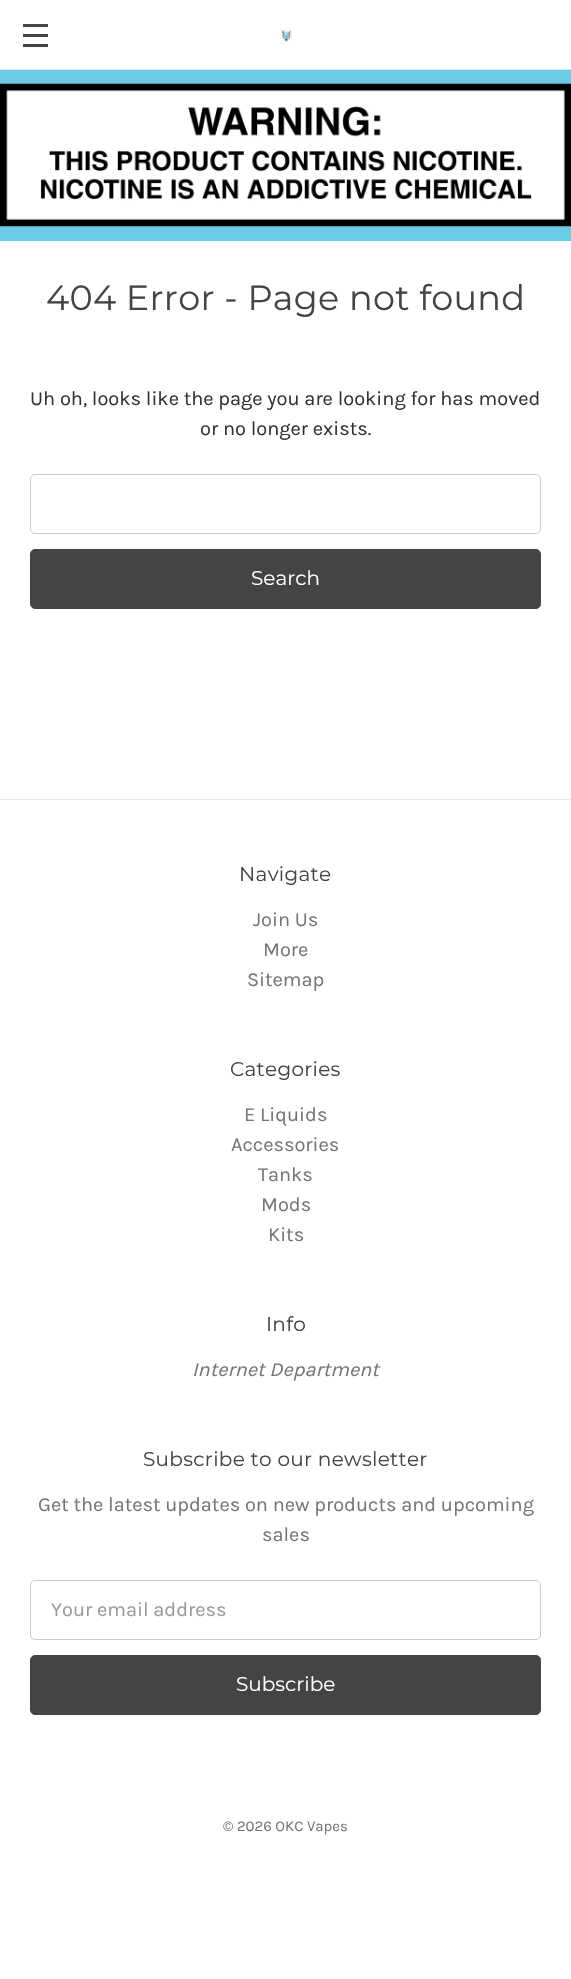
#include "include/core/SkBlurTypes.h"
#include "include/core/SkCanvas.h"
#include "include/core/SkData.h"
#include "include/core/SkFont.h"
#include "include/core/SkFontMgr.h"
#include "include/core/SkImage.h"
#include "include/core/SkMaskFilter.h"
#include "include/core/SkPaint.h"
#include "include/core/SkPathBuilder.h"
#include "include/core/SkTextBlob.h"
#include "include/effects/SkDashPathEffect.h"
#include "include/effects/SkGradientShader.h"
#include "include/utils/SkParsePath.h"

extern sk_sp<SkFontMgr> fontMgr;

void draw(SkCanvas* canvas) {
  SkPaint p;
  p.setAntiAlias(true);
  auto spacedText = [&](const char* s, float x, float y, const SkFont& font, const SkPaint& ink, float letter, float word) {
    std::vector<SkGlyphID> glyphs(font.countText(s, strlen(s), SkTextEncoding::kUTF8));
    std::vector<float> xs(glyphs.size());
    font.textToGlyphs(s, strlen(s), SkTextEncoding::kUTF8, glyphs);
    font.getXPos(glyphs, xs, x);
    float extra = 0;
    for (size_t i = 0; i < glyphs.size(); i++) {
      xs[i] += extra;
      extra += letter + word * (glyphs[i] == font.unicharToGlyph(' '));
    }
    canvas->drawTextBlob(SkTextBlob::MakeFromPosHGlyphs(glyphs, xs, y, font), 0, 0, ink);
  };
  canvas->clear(SK_ColorWHITE);
  p.setColor(SkColorSetRGB(229, 229, 229));
  canvas->drawRect(SkRect::MakeLTRB(0, 69, 571, 70), p);
  p.setColor(SkColorSetRGB(68, 68, 68));
  canvas->drawRect(SkRect::MakeLTRB(23, 34, 48, 37), p);
  canvas->drawRect(SkRect::MakeLTRB(23, 24, 48, 27), p);
  canvas->drawRect(SkRect::MakeLTRB(23, 44, 48, 47), p);
  canvas->drawImageRect(SkImages::DeferredFromEncodedData(SkData::MakeFromFileName("images/1.png")), SkRect::MakeLTRB(280, 29, 292, 42), SkSamplingOptions());
  p.setColor(SkColorSetRGB(106, 203, 229));
  canvas->drawRect(SkRect::MakeLTRB(0, 70, 571, 241), p);
  canvas->drawImageRect(SkImages::DeferredFromEncodedData(SkData::MakeFromFileName("images/2.png")), SkRect::MakeLTRB(0, 83, 571, 227), SkSamplingOptions());
  p.setStyle(SkPaint::kStroke_Style);
  p.setStrokeWidth(1);
  p.setColor(SkColorSetRGB(204, 204, 204));
  canvas->drawRoundRect(SkRect::MakeLTRB(30.5f, 474.5f, 540.5f, 533.5f), 4.5f, 4.5f, p);
  p.setStyle(SkPaint::kFill_Style);
  p.setColor(SkColorSetRGB(68, 68, 68));
  canvas->drawRoundRect(SkRect::MakeLTRB(30.5f, 549.5f, 540.5f, 608.5f), 4.5f, 4.5f, p);
  p.setStyle(SkPaint::kStroke_Style);
  canvas->drawRoundRect(SkRect::MakeLTRB(30.5f, 549.5f, 540.5f, 608.5f), 4.5f, 4.5f, p);
  p.setStyle(SkPaint::kFill_Style);
  p.setColor(SkColorSetRGB(229, 229, 229));
  canvas->drawRect(SkRect::MakeLTRB(0, 799, 571, 800), p);
  p.setStyle(SkPaint::kStroke_Style);
  p.setColor(SkColorSetRGB(204, 204, 204));
  canvas->drawRoundRect(SkRect::MakeLTRB(30.5f, 1580.5f, 540.5f, 1639.5f), 4.5f, 4.5f, p);
  p.setStyle(SkPaint::kFill_Style);
  p.setColor(SkColorSetRGB(68, 68, 68));
  canvas->drawRoundRect(SkRect::MakeLTRB(30.5f, 1655.5f, 540.5f, 1714.5f), 4.5f, 4.5f, p);
  p.setStyle(SkPaint::kStroke_Style);
  canvas->drawRoundRect(SkRect::MakeLTRB(30.5f, 1655.5f, 540.5f, 1714.5f), 4.5f, 4.5f, p);
  SkFont font1(fontMgr->matchFamilyStyle("Montserrat", SkFontStyle(100, SkFontStyle::kNormal_Width, SkFontStyle::kUpright_Slant)), 35);
  font1.setSubpixel(true);
  p.setStyle(SkPaint::kFill_Style);
  spacedText("404 Error - Page not found", 46, 310, font1, p, 0.3f, 0);
  SkFont font2(fontMgr->matchFamilyStyle("Karla", SkFontStyle::Normal()), 20);
  font2.setSubpixel(true);
  p.setColor(SkColorSetRGB(51, 51, 51));
  canvas->drawString("Uh oh, looks like the page you are looking for has moved", 30, 405, font2, p);
  canvas->drawString("or no longer exists.", 200, 435, font2, p);
  SkFont font3(fontMgr->matchFamilyStyle("Montserrat", SkFontStyle(100, SkFontStyle::kNormal_Width, SkFontStyle::kUpright_Slant)), 20);
  font3.setSubpixel(true);
  p.setColor(SK_ColorWHITE);
  canvas->drawString("Search", 251, 585, font3, p);
  p.setColor(SkColorSetRGB(68, 68, 68));
  spacedText("Navigate", 239, 881, font3, p, 0.3f, 0);
  p.setColor(SkColorSetRGB(117, 117, 117));
  canvas->drawString("Join Us", 253, 926, font2, p);
  canvas->drawString("More", 263, 956, font2, p);
  canvas->drawString("Sitemap", 247, 986, font2, p);
  p.setColor(SkColorSetRGB(68, 68, 68));
  spacedText("Categories", 230, 1076, font3, p, 0.3f, 0);
  p.setColor(SkColorSetRGB(117, 117, 117));
  canvas->drawString("E Liquids", 244, 1121, font2, p);
  canvas->drawString("Accessories", 231, 1151, font2, p);
  canvas->drawString("Tanks", 258, 1181, font2, p);
  canvas->drawString("Mods", 261, 1211, font2, p);
  canvas->drawString("Kits", 268, 1241, font2, p);
  p.setColor(SkColorSetRGB(68, 68, 68));
  spacedText("Info", 266, 1331, font3, p, 0.3f, 0);
  SkFont font4(fontMgr->matchFamilyStyle("Karla", SkFontStyle::Italic()), 20);
  font4.setSubpixel(true);
  p.setColor(SkColorSetRGB(117, 117, 117));
  canvas->drawString("Internet Department", 192, 1376, font4, p);
  p.setColor(SkColorSetRGB(68, 68, 68));
  spacedText("Subscribe to our newsletter", 143, 1466, font3, p, 0.3f, 0);
  p.setColor(SkColorSetRGB(117, 117, 117));
  canvas->drawString("Get the latest updates on new products and upcoming", 38, 1511, font2, p);
  canvas->drawString("sales", 262, 1541, font2, p);
  p.setColor(SkColorSetRGB(153, 153, 153));
  canvas->drawString("Your email address", 51, 1616, font2, p);
  p.setColor(SK_ColorWHITE);
  canvas->drawString("Subscribe", 236, 1691, font3, p);
  SkFont font5(fontMgr->matchFamilyStyle("Karla", SkFontStyle::Normal()), 15);
  font5.setSubpixel(true);
  p.setColor(SkColorSetRGB(117, 117, 117));
  canvas->drawString("© 2026 OKC Vapes", 223, 1831, font5, p);
}
